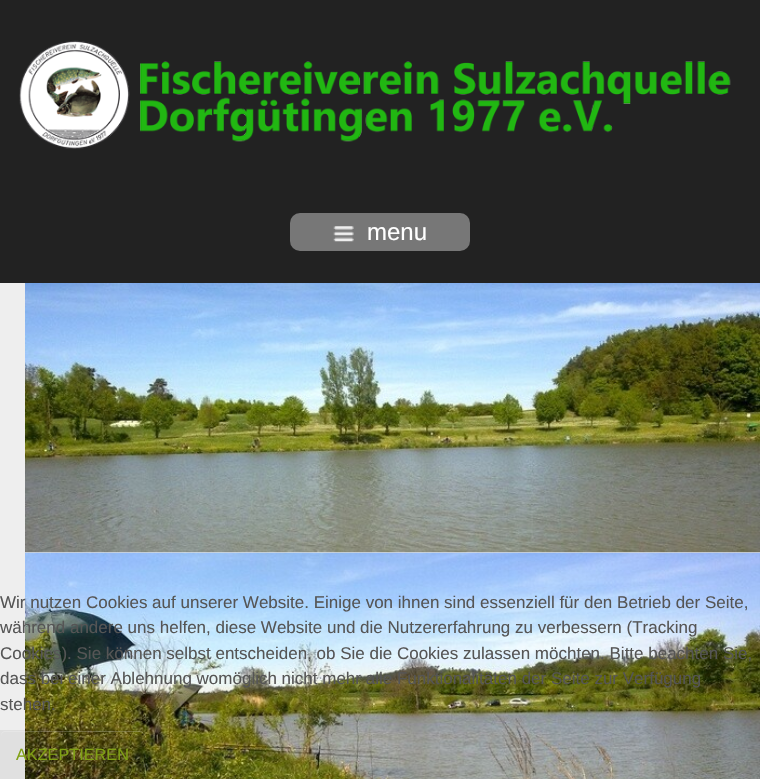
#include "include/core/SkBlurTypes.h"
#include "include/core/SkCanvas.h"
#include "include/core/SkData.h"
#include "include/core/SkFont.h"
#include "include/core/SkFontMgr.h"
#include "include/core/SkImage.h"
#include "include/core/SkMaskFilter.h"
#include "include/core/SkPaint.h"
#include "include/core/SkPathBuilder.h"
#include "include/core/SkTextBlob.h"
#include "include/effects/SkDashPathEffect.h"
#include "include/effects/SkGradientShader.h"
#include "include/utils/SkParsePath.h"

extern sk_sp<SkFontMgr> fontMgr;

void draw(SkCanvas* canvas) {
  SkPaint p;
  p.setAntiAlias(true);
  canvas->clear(SkColorSetRGB(238, 238, 238));
  p.setColor(SkColorSetRGB(34, 34, 34));
  canvas->drawRect(SkRect::MakeLTRB(0, 0, 760, 283), p);
  canvas->drawImageRect(SkImages::DeferredFromEncodedData(SkData::MakeFromFileName("images/1.png")), SkRect::MakeLTRB(19, 40, 731, 149), SkSamplingOptions());
  p.setColor(SkColorSetRGB(119, 119, 119));
  canvas->drawRoundRect(SkRect::MakeLTRB(290, 213, 470, 251), 10, 10, p);
  canvas->drawImageRect(SkImages::DeferredFromEncodedData(SkData::MakeFromFileName("images/2.png")), SkRect::MakeLTRB(333, 226, 354, 242), SkSamplingOptions());
  canvas->drawImageRect(SkImages::DeferredFromEncodedData(SkData::MakeFromFileName("images/3.png")), SkRect::MakeLTRB(25, 283, 760, 553), SkSamplingOptions());
  canvas->drawImageRect(SkImages::DeferredFromEncodedData(SkData::MakeFromFileName("images/4.png")), SkRect::MakeLTRB(25, 552, 760, 779), SkSamplingOptions());
  p.setColor(SkColorSetARGB(15, 0, 0, 0));
  canvas->drawRect(SkRect::MakeLTRB(0, 730, 145, 779), p);
  p.setColor(SkColorSetARGB(51, 255, 255, 255));
  canvas->drawPath(SkPathBuilder().moveTo(5, 732).lineTo(140, 732).cubicTo(142, 732, 144, 734, 144, 736).lineTo(144, 735).cubicTo(144, 733, 142, 731, 140, 731).lineTo(5, 731).cubicTo(3, 731, 1, 733, 1, 735).lineTo(1, 736).cubicTo(1, 734, 3, 732, 5, 732).close().detach(), p);
  SkFont font1(fontMgr->matchFamilyStyle("Liberation Sans", SkFontStyle::Normal()), 24);
  font1.setSubpixel(true);
  p.setColor(SK_ColorWHITE);
  canvas->drawString("menu", 367, 240, font1, p);
  SkFont font2(fontMgr->matchFamilyStyle("Liberation Sans", SkFontStyle::Normal()), 17);
  font2.setSubpixel(true);
  p.setColor(SkColorSetRGB(85, 85, 85));
  canvas->drawString("Wir nutzen Cookies auf unserer Website. Einige von ihnen sind essenziell für den Betrieb der Seite,", 0, 608, font2, p);
  canvas->drawString("während andere uns helfen, diese Website und die Nutzererfahrung zu verbessern (Tracking", 0, 633, font2, p);
  canvas->drawString("Cookies). Sie können selbst entscheiden, ob Sie die Cookies zulassen möchten. Bitte beachten Sie,", 0, 659, font2, p);
  canvas->drawString("dass bei einer Ablehnung womöglich nicht mehr alle Funktionalitäten der Seite zur Verfügung", 0, 684, font2, p);
  canvas->drawString("stehen.", 0, 710, font2, p);
  SkFont font3(fontMgr->matchFamilyStyle("Liberation Sans", SkFontStyle::Normal()), 16.25f);
  font3.setSubpixel(true);
  p.setColor(SkColorSetRGB(128, 161, 20));
  canvas->drawString("AKZEPTIEREN", 16, 760, font3, p);
}
